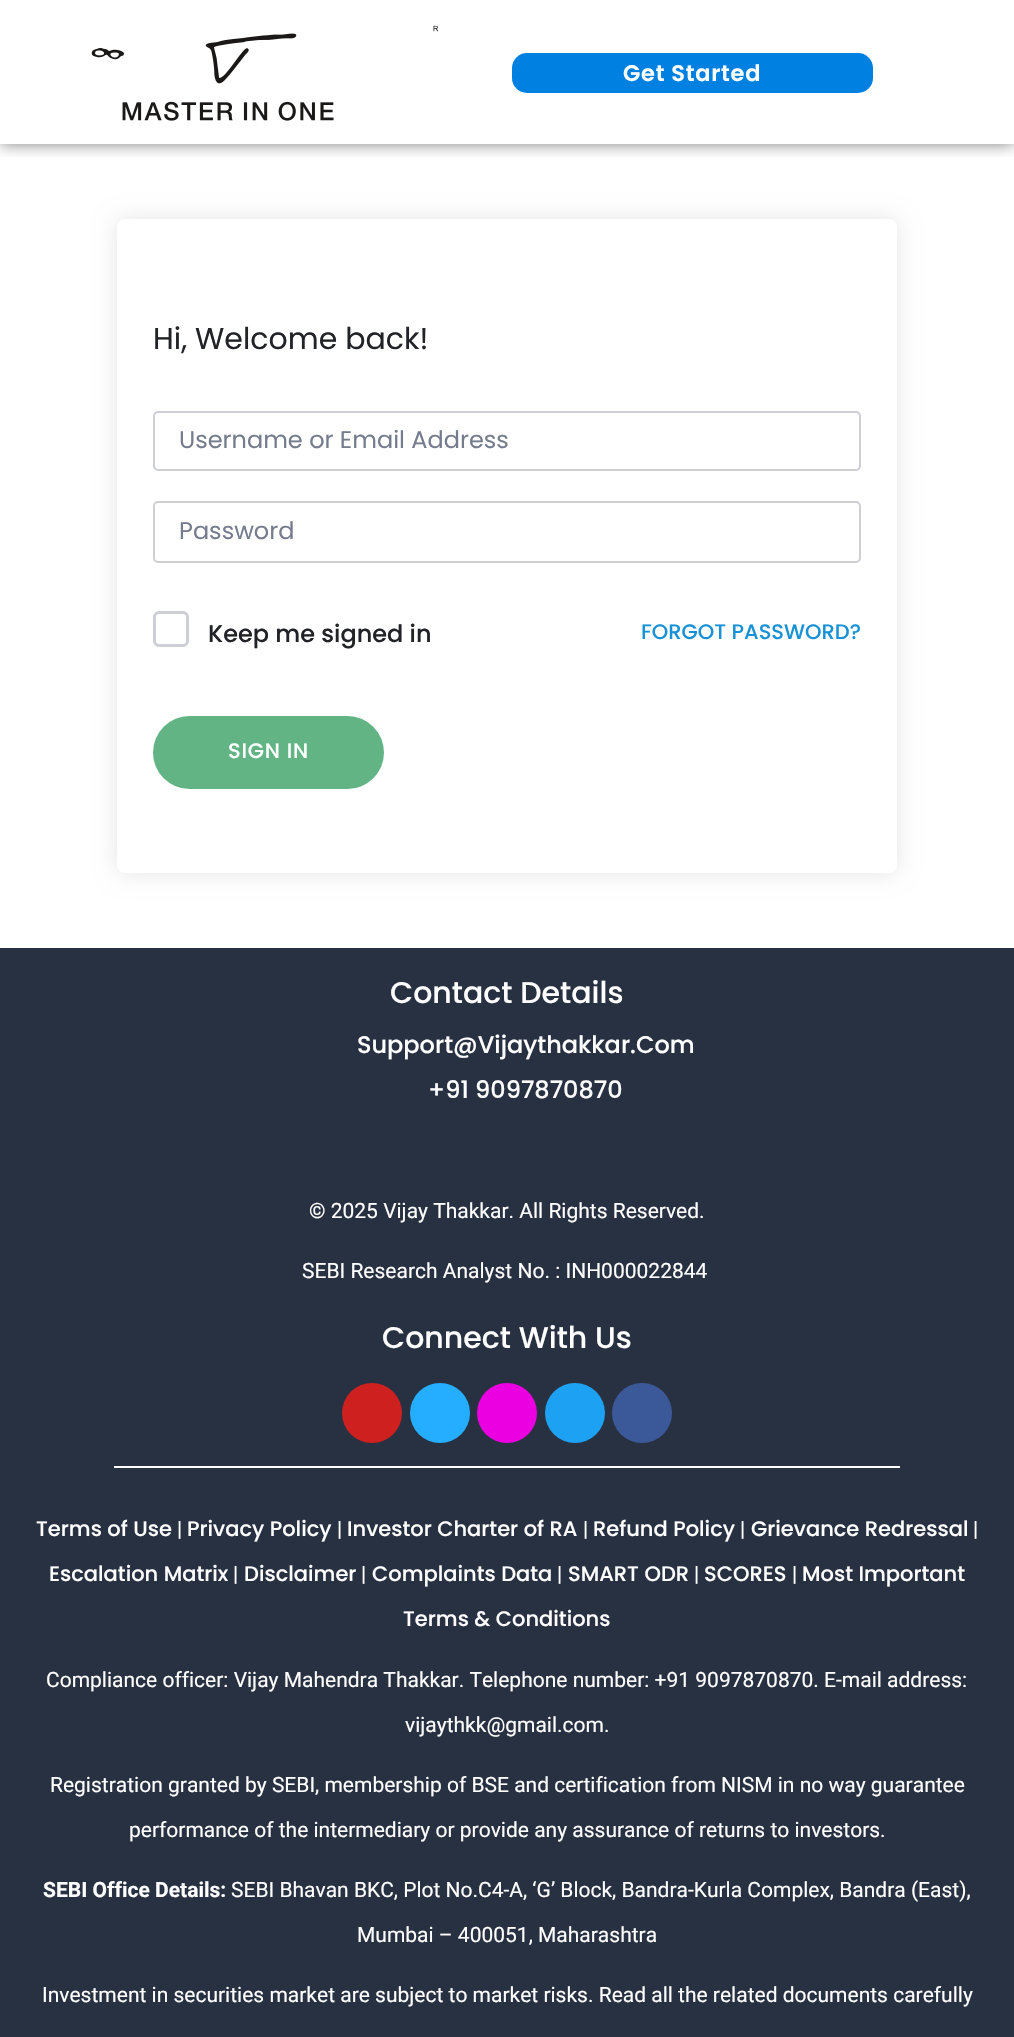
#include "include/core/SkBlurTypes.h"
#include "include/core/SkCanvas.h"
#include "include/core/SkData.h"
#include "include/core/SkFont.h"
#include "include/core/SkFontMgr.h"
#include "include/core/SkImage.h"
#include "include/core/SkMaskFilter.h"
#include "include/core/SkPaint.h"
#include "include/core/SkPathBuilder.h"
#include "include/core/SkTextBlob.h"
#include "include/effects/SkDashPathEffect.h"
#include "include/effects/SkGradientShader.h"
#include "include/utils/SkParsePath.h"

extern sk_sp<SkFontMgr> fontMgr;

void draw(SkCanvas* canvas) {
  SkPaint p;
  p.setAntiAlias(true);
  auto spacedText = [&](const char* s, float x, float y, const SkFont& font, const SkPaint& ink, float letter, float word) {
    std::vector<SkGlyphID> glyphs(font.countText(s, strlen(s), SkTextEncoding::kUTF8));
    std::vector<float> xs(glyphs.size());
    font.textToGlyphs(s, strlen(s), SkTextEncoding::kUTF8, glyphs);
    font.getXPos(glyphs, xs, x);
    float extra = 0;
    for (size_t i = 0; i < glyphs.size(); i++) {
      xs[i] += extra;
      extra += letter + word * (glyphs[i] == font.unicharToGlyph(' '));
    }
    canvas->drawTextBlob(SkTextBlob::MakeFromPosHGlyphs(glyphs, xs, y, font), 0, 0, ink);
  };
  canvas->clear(SK_ColorWHITE);
  canvas->save();
  canvas->clipRect(SkRect::MakeLTRB(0, 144, 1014, 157));
  p.setColor(SkColorSetARGB(128, 0, 0, 0));
  p.setMaskFilter(SkMaskFilter::MakeBlur(kNormal_SkBlurStyle, 7.5f));
  canvas->drawRect(SkRect::MakeLTRB(0, 0, 1014, 144), p);
  p.setMaskFilter(nullptr);
  canvas->restore();
  canvas->drawImageRect(SkImages::DeferredFromEncodedData(SkData::MakeFromFileName("images/1.png")), SkRect::MakeLTRB(91, 25, 439, 121), SkSamplingOptions());
  p.setColor(SkColorSetRGB(0, 128, 224));
  canvas->drawRoundRect(SkRect::MakeLTRB(512, 53, 873, 93), 15, 15, p);
  canvas->save();
  canvas->clipPath(SkPathBuilder(SkPathFillType::kEvenOdd).moveTo(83, 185).lineTo(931, 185).lineTo(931, 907).lineTo(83, 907).close().moveTo(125, 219).lineTo(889, 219).cubicTo(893.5f, 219, 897, 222.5f, 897, 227).lineTo(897, 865).cubicTo(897, 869.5f, 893.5f, 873, 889, 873).lineTo(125, 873).cubicTo(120.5f, 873, 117, 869.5f, 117, 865).lineTo(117, 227).cubicTo(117, 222.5f, 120.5f, 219, 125, 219).close().detach(), true);
  p.setColor(SkColorSetARGB(26, 0, 0, 0));
  p.setMaskFilter(SkMaskFilter::MakeBlur(kNormal_SkBlurStyle, 11));
  canvas->drawRoundRect(SkRect::MakeLTRB(117, 219, 897, 873), 8, 8, p);
  p.setMaskFilter(nullptr);
  canvas->restore();
  p.setStyle(SkPaint::kStroke_Style);
  p.setStrokeWidth(2);
  p.setColor(SkColorSetRGB(205, 207, 213));
  canvas->drawRoundRect(SkRect::MakeLTRB(154, 412, 860, 470), 4, 4, p);
  canvas->drawRoundRect(SkRect::MakeLTRB(154, 502, 860, 562), 4, 4, p);
  p.setStrokeWidth(3);
  canvas->drawRoundRect(SkRect::MakeLTRB(154.5f, 612.5f, 187.5f, 645.5f), 4.5f, 4.5f, p);
  p.setStyle(SkPaint::kFill_Style);
  p.setColor(SkColorSetRGB(98, 180, 133));
  canvas->drawRoundRect(SkRect::MakeLTRB(153, 716, 384, 789), 36.5f, 36.5f, p);
  p.setColor(SkColorSetRGB(40, 49, 65));
  canvas->drawRect(SkRect::MakeLTRB(0, 948, 1014, 2037), p);
  p.setColor(SkColorSetRGB(205, 32, 31));
  canvas->drawCircle(372, 1413, 30, p);
  p.setColor(SkColorSetRGB(37, 174, 255));
  canvas->drawCircle(440, 1413, 30, p);
  p.setColor(SkColorSetRGB(235, 0, 225));
  canvas->drawCircle(507, 1413, 30, p);
  p.setColor(SkColorSetRGB(29, 161, 242));
  canvas->drawCircle(575, 1413, 30, p);
  p.setColor(SkColorSetRGB(59, 89, 152));
  canvas->drawCircle(642, 1413, 30, p);
  p.setColor(SK_ColorWHITE);
  canvas->drawRect(SkRect::MakeLTRB(114, 1466, 900, 1468), p);
  SkFont font1(fontMgr->matchFamilyStyle("Poppins", SkFontStyle(600, SkFontStyle::kNormal_Width, SkFontStyle::kUpright_Slant)), 22.5f);
  font1.setSubpixel(true);
  spacedText("Get Started", 623, 81, font1, p, 0.75f, 0);
  SkFont font2(fontMgr->matchFamilyStyle("Poppins", SkFontStyle::Normal()), 30);
  font2.setSubpixel(true);
  p.setColor(SkColorSetRGB(33, 35, 39));
  canvas->drawString("Hi, Welcome back!", 153, 349, font2, p);
  SkFont font3(fontMgr->matchFamilyStyle("Poppins", SkFontStyle::Normal()), 24);
  font3.setSubpixel(true);
  p.setColor(SkColorSetRGB(117, 124, 142));
  canvas->drawString("Username or Email Address", 179, 448, font3, p);
  canvas->drawString("Password", 179, 539, font3, p);
  SkFont font4(fontMgr->matchFamilyStyle("Poppins", SkFontStyle(500, SkFontStyle::kNormal_Width, SkFontStyle::kUpright_Slant)), 24);
  font4.setSubpixel(true);
  p.setColor(SkColorSetRGB(33, 35, 39));
  canvas->drawString("Keep me signed in", 208, 642, font4, p);
  SkFont font5(fontMgr->matchFamilyStyle("Poppins", SkFontStyle(500, SkFontStyle::kNormal_Width, SkFontStyle::kUpright_Slant)), 21);
  font5.setSubpixel(true);
  p.setColor(SkColorSetRGB(24, 146, 214));
  canvas->drawString("FORGOT PASSWORD?", 641, 639, font5, p);
  p.setColor(SK_ColorWHITE);
  spacedText("SIGN IN", 228, 758, font5, p, 0.75f, 0);
  SkFont font6(fontMgr->matchFamilyStyle("Poppins", SkFontStyle(500, SkFontStyle::kNormal_Width, SkFontStyle::kUpright_Slant)), 30);
  font6.setSubpixel(true);
  canvas->drawString("Contact Details", 390, 1003, font6, p);
  canvas->drawString("Support@Vijaythakkar.Com", 357, 1053, font4, p);
  canvas->drawString("+91 9097870870", 428, 1098, font4, p);
  SkFont font7(fontMgr->matchFamilyStyle("Roboto", SkFontStyle::Normal()), 21);
  font7.setSubpixel(true);
  canvas->drawString("© 2025 Vijay Thakkar. All Rights Reserved.", 309, 1218, font7, p);
  canvas->drawString("SEBI Research Analyst No. : INH000022844", 302, 1278, font7, p);
  canvas->drawString("Connect With Us", 382, 1348, font6, p);
  canvas->drawString("Terms of Use", 36, 1536, font5, p);
  canvas->drawString("|", 177, 1536, font7, p);
  canvas->drawString("Privacy Policy", 187, 1536, font5, p);
  canvas->drawString("|", 337, 1536, font7, p);
  canvas->drawString("Investor Charter of RA", 347, 1536, font5, p);
  canvas->drawString("|", 583, 1536, font7, p);
  canvas->drawString("Refund Policy", 593, 1536, font5, p);
  canvas->drawString("|", 740, 1536, font7, p);
  canvas->drawString("Grievance Redressal", 751, 1536, font5, p);
  canvas->drawString("|", 973, 1536, font7, p);
  canvas->drawString("Escalation Matrix", 49, 1581, font5, p);
  canvas->drawString("|", 233, 1581, font7, p);
  canvas->drawString("Disclaimer", 244, 1581, font5, p);
  canvas->drawString("|", 361, 1581, font7, p);
  canvas->drawString("Complaints Data", 372, 1581, font5, p);
  canvas->drawString("|", 557, 1581, font7, p);
  canvas->drawString("SMART ODR", 568, 1581, font5, p);
  canvas->drawString("|", 694, 1581, font7, p);
  canvas->drawString("SCORES", 704, 1581, font5, p);
  canvas->drawString("|", 792, 1581, font7, p);
  canvas->drawString("Most Important", 802, 1581, font5, p);
  canvas->drawString("Terms & Conditions", 403, 1626, font5, p);
  canvas->drawString("Compliance officer: Vijay Mahendra Thakkar. Telephone number: +91 9097870870. E-mail address:", 46, 1687, font7, p);
  canvas->drawString("vijaythkk@gmail.com.", 405, 1732, font7, p);
  canvas->drawString("Registration granted by SEBI, membership of BSE and certification from NISM in no way guarantee", 50, 1792, font7, p);
  canvas->drawString("performance of the intermediary or provide any assurance of returns to investors.", 129, 1837, font7, p);
  SkFont font8(fontMgr->matchFamilyStyle("Roboto", SkFontStyle::Bold()), 21);
  font8.setSubpixel(true);
  canvas->drawString("SEBI Office Details:", 43, 1897, font8, p);
  canvas->drawString("SEBI Bhavan BKC, Plot No.C4-A, ‘G’ Block, Bandra-Kurla Complex, Bandra (East),", 231, 1897, font7, p);
  canvas->drawString("Mumbai – 400051, Maharashtra", 357, 1942, font7, p);
  canvas->drawString("Investment in securities market are subject to market risks. Read all the related documents carefully", 42, 2002, font7, p);
}
